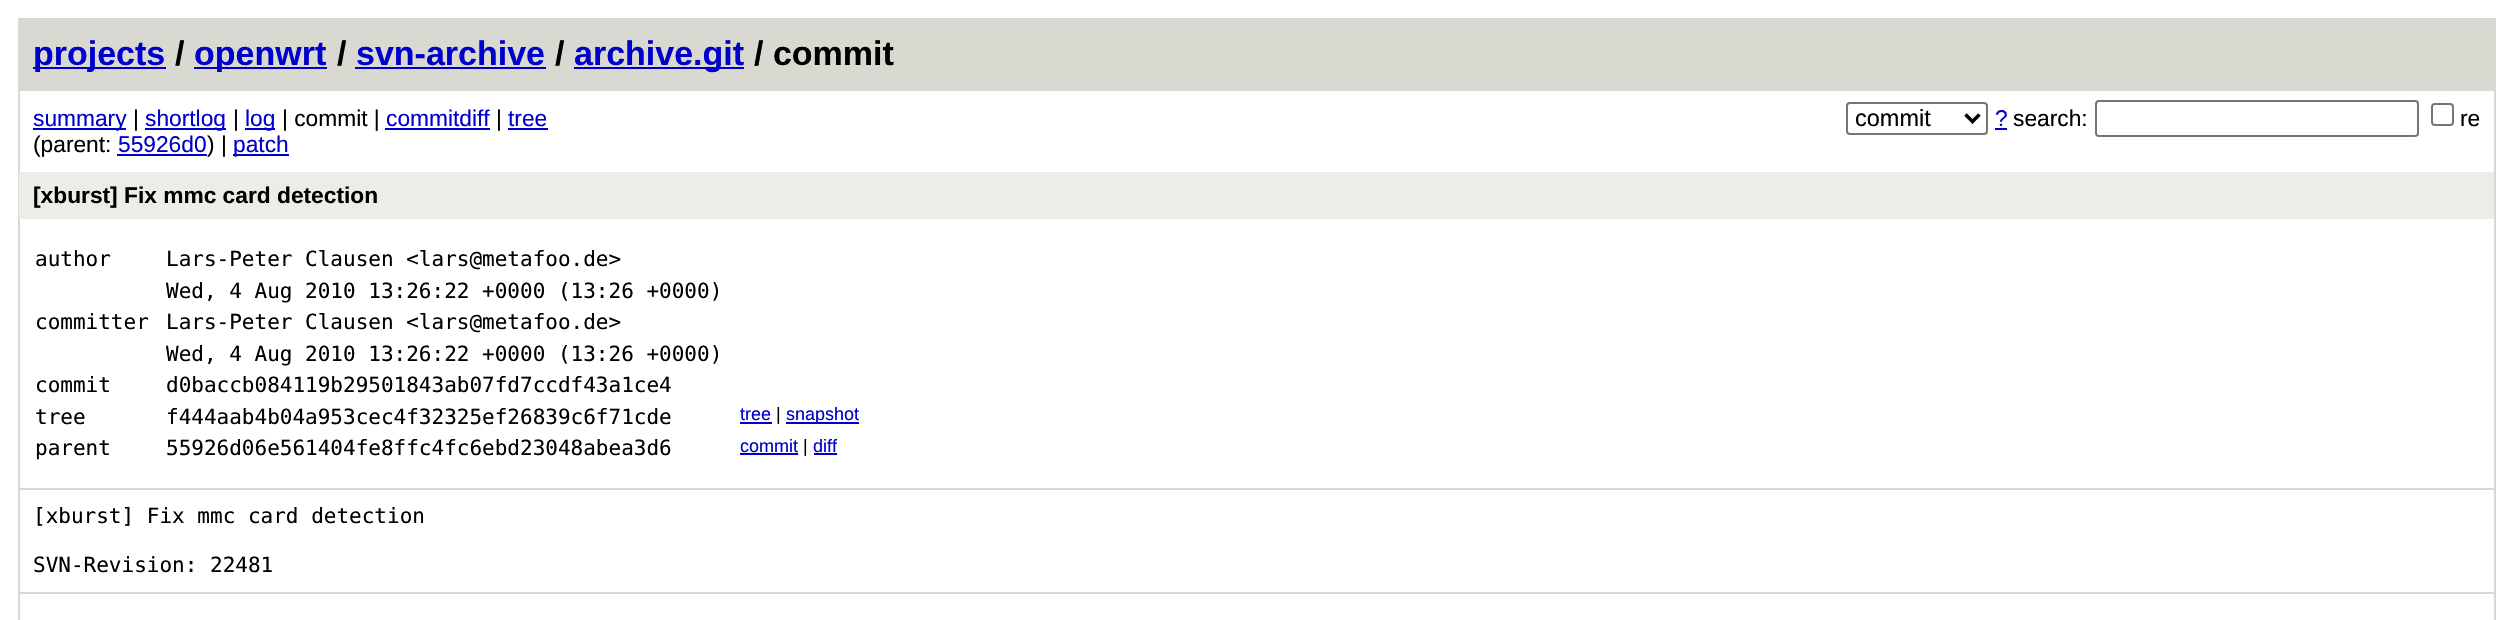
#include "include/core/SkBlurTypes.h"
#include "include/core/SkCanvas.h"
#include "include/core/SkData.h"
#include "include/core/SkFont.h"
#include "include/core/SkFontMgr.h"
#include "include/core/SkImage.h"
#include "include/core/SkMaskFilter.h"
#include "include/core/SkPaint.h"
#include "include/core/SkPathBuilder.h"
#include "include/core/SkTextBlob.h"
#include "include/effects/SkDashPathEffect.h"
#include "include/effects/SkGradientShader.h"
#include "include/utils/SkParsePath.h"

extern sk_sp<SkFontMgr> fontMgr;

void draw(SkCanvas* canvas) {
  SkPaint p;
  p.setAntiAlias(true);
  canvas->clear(SK_ColorWHITE);
  p.setStyle(SkPaint::kStroke_Style);
  p.setStrokeWidth(2);
  p.setColor(SkColorSetRGB(217, 216, 209));
  canvas->drawRect(SkRect::MakeLTRB(19, 19, 2495, 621), p);
  p.setStyle(SkPaint::kFill_Style);
  canvas->drawRect(SkRect::MakeLTRB(20, 20, 2494, 91), p);
  p.setColor(SkColorSetRGB(0, 0, 204));
  canvas->drawRect(SkRect::MakeLTRB(33, 67, 166, 69), p);
  canvas->drawRect(SkRect::MakeLTRB(194, 67, 327, 69), p);
  canvas->drawRect(SkRect::MakeLTRB(355, 67, 546, 69), p);
  canvas->drawRect(SkRect::MakeLTRB(574, 67, 744, 69), p);
  canvas->drawRect(SkRect::MakeLTRB(33, 128, 126, 130), p);
  canvas->drawRect(SkRect::MakeLTRB(145, 128, 226, 130), p);
  canvas->drawRect(SkRect::MakeLTRB(245, 128, 275, 130), p);
  canvas->drawRect(SkRect::MakeLTRB(385, 128, 490, 130), p);
  canvas->drawRect(SkRect::MakeLTRB(508, 128, 548, 130), p);
  canvas->drawRect(SkRect::MakeLTRB(117, 154, 207, 156), p);
  canvas->drawRect(SkRect::MakeLTRB(233, 154, 289, 156), p);
  p.setStyle(SkPaint::kStroke_Style);
  p.setColor(SkColorSetRGB(118, 118, 118));
  canvas->drawRoundRect(SkRect::MakeLTRB(1847, 103, 1987, 134), 3, 3, p);
  p.setStrokeWidth(3.5f);
  p.setColor(SK_ColorBLACK);
  canvas->drawPath(SkPathBuilder().moveTo(1965.5f, 114.5f).lineTo(1972.5f, 121.5f).lineTo(1979.5f, 114.5f).detach(), p);
  p.setStyle(SkPaint::kFill_Style);
  p.setColor(SkColorSetRGB(0, 0, 204));
  canvas->drawRect(SkRect::MakeLTRB(1995, 128, 2007, 130), p);
  p.setStyle(SkPaint::kStroke_Style);
  p.setStrokeWidth(2);
  p.setColor(SkColorSetRGB(118, 118, 118));
  canvas->drawRoundRect(SkRect::MakeLTRB(2096, 101, 2418, 136), 3, 3, p);
  canvas->drawRoundRect(SkRect::MakeLTRB(2432, 104, 2453, 125), 3, 3, p);
  p.setStyle(SkPaint::kFill_Style);
  p.setColor(SkColorSetRGB(237, 236, 230));
  canvas->drawRect(SkRect::MakeLTRB(19, 172, 2494, 219), p);
  p.setColor(SkColorSetRGB(217, 216, 209));
  canvas->drawRect(SkRect::MakeLTRB(19, 488, 2494, 490), p);
  p.setColor(SkColorSetRGB(0, 0, 204));
  canvas->drawRect(SkRect::MakeLTRB(740, 422, 772, 424), p);
  canvas->drawRect(SkRect::MakeLTRB(786, 422, 859, 424), p);
  canvas->drawRect(SkRect::MakeLTRB(740, 453, 798, 455), p);
  canvas->drawRect(SkRect::MakeLTRB(814, 453, 837, 455), p);
  p.setColor(SkColorSetRGB(217, 216, 209));
  canvas->drawRect(SkRect::MakeLTRB(19, 592, 2494, 594), p);
  SkFont font1(fontMgr->matchFamilyStyle("Liberation Sans", SkFontStyle::Bold()), 34);
  font1.setSubpixel(true);
  p.setColor(SkColorSetRGB(0, 0, 204));
  canvas->drawString("projects", 33, 65, font1, p);
  p.setColor(SK_ColorBLACK);
  canvas->drawString("/", 175, 65, font1, p);
  p.setColor(SkColorSetRGB(0, 0, 204));
  canvas->drawString("openwrt", 194, 65, font1, p);
  p.setColor(SK_ColorBLACK);
  canvas->drawString("/", 337, 65, font1, p);
  p.setColor(SkColorSetRGB(0, 0, 204));
  canvas->drawString("svn-archive", 356, 65, font1, p);
  p.setColor(SK_ColorBLACK);
  canvas->drawString("/", 555, 65, font1, p);
  p.setColor(SkColorSetRGB(0, 0, 204));
  canvas->drawString("archive.git", 574, 65, font1, p);
  p.setColor(SK_ColorBLACK);
  canvas->drawString("/ commit", 754, 65, font1, p);
  SkFont font2(fontMgr->matchFamilyStyle("Liberation Sans", SkFontStyle::Normal()), 22.75f);
  font2.setSubpixel(true);
  p.setColor(SkColorSetRGB(0, 0, 204));
  canvas->drawString("summary", 33, 126, font2, p);
  p.setColor(SK_ColorBLACK);
  canvas->drawString("|", 133, 126, font2, p);
  p.setColor(SkColorSetRGB(0, 0, 204));
  canvas->drawString("shortlog", 145, 126, font2, p);
  p.setColor(SK_ColorBLACK);
  canvas->drawString("|", 233, 126, font2, p);
  p.setColor(SkColorSetRGB(0, 0, 204));
  canvas->drawString("log", 245, 126, font2, p);
  p.setColor(SK_ColorBLACK);
  canvas->drawString("| commit |", 282, 126, font2, p);
  p.setColor(SkColorSetRGB(0, 0, 204));
  canvas->drawString("commitdiff", 386, 126, font2, p);
  p.setColor(SK_ColorBLACK);
  canvas->drawString("|", 496, 126, font2, p);
  p.setColor(SkColorSetRGB(0, 0, 204));
  canvas->drawString("tree", 508, 126, font2, p);
  p.setColor(SK_ColorBLACK);
  canvas->drawString("(parent:", 33, 152, font2, p);
  p.setColor(SkColorSetRGB(0, 0, 204));
  canvas->drawString("55926d0", 118, 152, font2, p);
  p.setColor(SK_ColorBLACK);
  canvas->drawString(") |", 207, 152, font2, p);
  p.setColor(SkColorSetRGB(0, 0, 204));
  canvas->drawString("patch", 233, 152, font2, p);
  SkFont font3(fontMgr->matchFamilyStyle("Liberation Sans", SkFontStyle::Normal()), 23.5f);
  font3.setSubpixel(true);
  p.setColor(SK_ColorBLACK);
  canvas->drawString("commit", 1855, 126, font3, p);
  p.setColor(SkColorSetRGB(0, 0, 204));
  canvas->drawString("?", 1995, 126, font2, p);
  p.setColor(SK_ColorBLACK);
  canvas->drawString("search:", 2013, 126, font2, p);
  canvas->drawString("re", 2460, 126, font2, p);
  SkFont font4(fontMgr->matchFamilyStyle("Liberation Sans", SkFontStyle::Bold()), 22.75f);
  font4.setSubpixel(true);
  canvas->drawString("[xburst] Fix mmc card detection", 33, 203, font4, p);
  SkFont font5(fontMgr->matchFamilyStyle("DejaVu Sans Mono", SkFontStyle::Normal()), 21);
  font5.setSubpixel(true);
  canvas->drawString("author", 35, 266, font5, p);
  canvas->drawString("Lars-Peter Clausen <lars@metafoo.de>", 166, 266, font5, p);
  canvas->drawString("Wed, 4 Aug 2010 13:26:22 +0000 (13:26 +0000)", 166, 298, font5, p);
  canvas->drawString("committer", 35, 329, font5, p);
  canvas->drawString("Lars-Peter Clausen <lars@metafoo.de>", 166, 329, font5, p);
  canvas->drawString("Wed, 4 Aug 2010 13:26:22 +0000 (13:26 +0000)", 166, 361, font5, p);
  canvas->drawString("commit", 35, 392, font5, p);
  canvas->drawString("d0baccb084119b29501843ab07fd7ccdf43a1ce4", 166, 392, font5, p);
  canvas->drawString("tree", 35, 424, font5, p);
  canvas->drawString("f444aab4b04a953cec4f32325ef26839c6f71cde", 166, 424, font5, p);
  SkFont font6(fontMgr->matchFamilyStyle("Liberation Sans", SkFontStyle::Normal()), 18);
  font6.setSubpixel(true);
  p.setColor(SkColorSetRGB(0, 0, 204));
  canvas->drawString("tree", 740, 420, font6, p);
  p.setColor(SK_ColorBLACK);
  canvas->drawString("|", 776, 420, font6, p);
  p.setColor(SkColorSetRGB(0, 0, 204));
  canvas->drawString("snapshot", 786, 420, font6, p);
  p.setColor(SK_ColorBLACK);
  canvas->drawString("parent", 35, 455, font5, p);
  canvas->drawString("55926d06e561404fe8ffc4fc6ebd23048abea3d6", 166, 455, font5, p);
  p.setColor(SkColorSetRGB(0, 0, 204));
  canvas->drawString("commit", 740, 452, font6, p);
  p.setColor(SK_ColorBLACK);
  canvas->drawString("|", 803, 452, font6, p);
  p.setColor(SkColorSetRGB(0, 0, 204));
  canvas->drawString("diff", 813, 452, font6, p);
  p.setColor(SK_ColorBLACK);
  canvas->drawString("[xburst] Fix mmc card detection", 33, 523, font5, p);
  canvas->drawString("SVN-Revision: 22481", 33, 572, font5, p);
}
